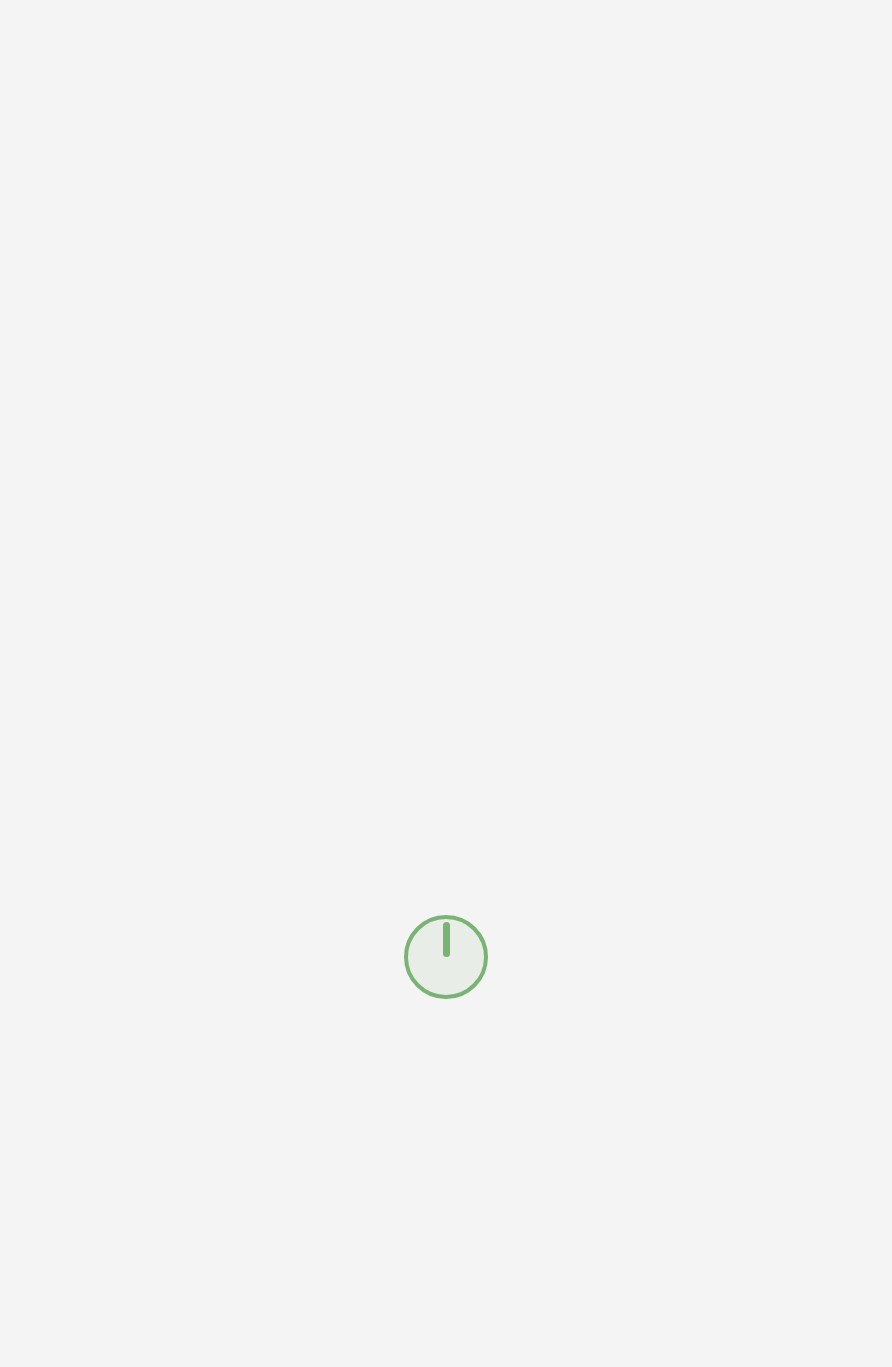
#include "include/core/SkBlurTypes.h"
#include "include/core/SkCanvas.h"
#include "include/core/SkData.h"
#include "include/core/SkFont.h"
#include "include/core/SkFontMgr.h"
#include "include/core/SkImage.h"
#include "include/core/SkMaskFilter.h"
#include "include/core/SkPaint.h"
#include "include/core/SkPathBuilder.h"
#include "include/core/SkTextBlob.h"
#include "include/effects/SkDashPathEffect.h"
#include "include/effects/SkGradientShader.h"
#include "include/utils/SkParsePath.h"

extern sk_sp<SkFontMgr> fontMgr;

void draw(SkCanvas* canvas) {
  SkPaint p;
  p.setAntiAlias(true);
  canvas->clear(SkColorSetRGB(244, 244, 244));
  p.setColor(SkColorSetRGB(232, 237, 231));
  canvas->drawCircle(446, 957, 40, p);
  p.setStyle(SkPaint::kStroke_Style);
  p.setStrokeWidth(4);
  p.setColor(SkColorSetRGB(122, 179, 116));
  canvas->drawCircle(446, 957, 40, p);
  p.setStyle(SkPaint::kFill_Style);
  canvas->drawRoundRect(SkRect::MakeLTRB(443, 922, 450, 957), 3.5f, 3.5f, p);
}
